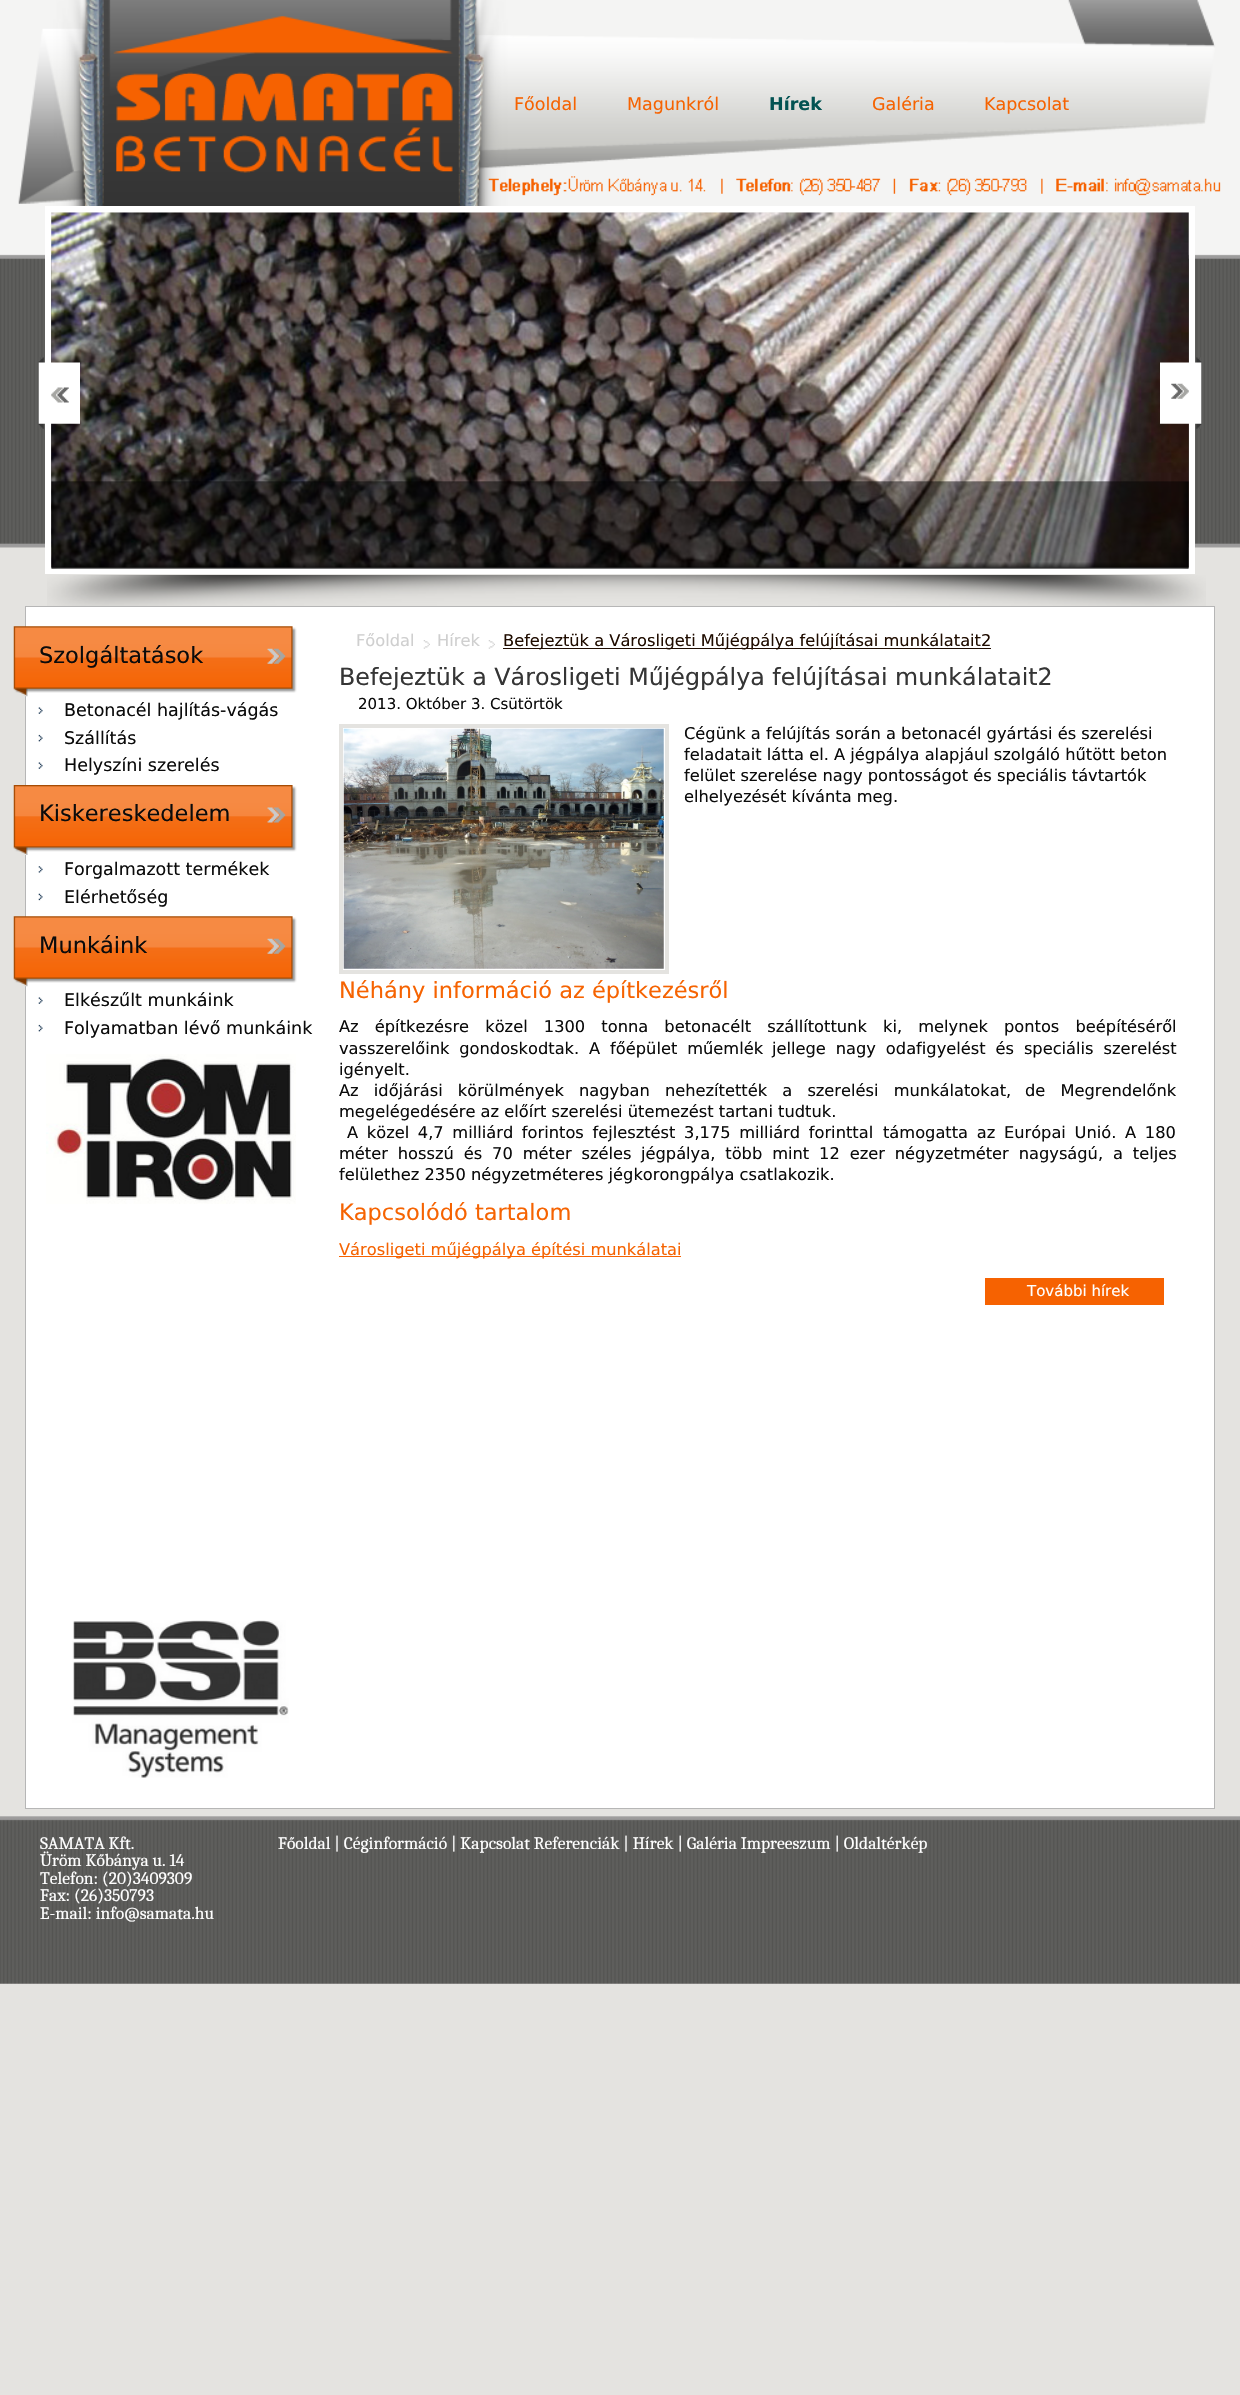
#include "include/core/SkBlurTypes.h"
#include "include/core/SkCanvas.h"
#include "include/core/SkData.h"
#include "include/core/SkFont.h"
#include "include/core/SkFontMgr.h"
#include "include/core/SkImage.h"
#include "include/core/SkMaskFilter.h"
#include "include/core/SkPaint.h"
#include "include/core/SkPathBuilder.h"
#include "include/core/SkTextBlob.h"
#include "include/effects/SkDashPathEffect.h"
#include "include/effects/SkGradientShader.h"
#include "include/utils/SkParsePath.h"

extern sk_sp<SkFontMgr> fontMgr;

void draw(SkCanvas* canvas) {
  SkPaint p;
  p.setAntiAlias(true);
  auto spacedText = [&](const char* s, float x, float y, const SkFont& font, const SkPaint& ink, float letter, float word) {
    std::vector<SkGlyphID> glyphs(font.countText(s, strlen(s), SkTextEncoding::kUTF8));
    std::vector<float> xs(glyphs.size());
    font.textToGlyphs(s, strlen(s), SkTextEncoding::kUTF8, glyphs);
    font.getXPos(glyphs, xs, x);
    float extra = 0;
    for (size_t i = 0; i < glyphs.size(); i++) {
      xs[i] += extra;
      extra += letter + word * (glyphs[i] == font.unicharToGlyph(' '));
    }
    canvas->drawTextBlob(SkTextBlob::MakeFromPosHGlyphs(glyphs, xs, y, font), 0, 0, ink);
  };
  canvas->clear(SkColorSetRGB(228, 227, 224));
  canvas->drawImageRect(SkImages::DeferredFromEncodedData(SkData::MakeFromFileName("images/1.png")), SkRect::MakeLTRB(0, 0, 1240, 548), SkSamplingOptions());
  canvas->drawImageRect(SkImages::DeferredFromEncodedData(SkData::MakeFromFileName("images/2.png")), SkRect::MakeLTRB(0, 1816, 1240, 1984), SkSamplingOptions());
  canvas->drawImageRect(SkImages::DeferredFromEncodedData(SkData::MakeFromFileName("images/3.png")), SkRect::MakeLTRB(18, 0, 1221, 207), SkSamplingOptions());
  canvas->drawImageRect(SkImages::DeferredFromEncodedData(SkData::MakeFromFileName("images/4.png")), SkRect::MakeLTRB(47, 575, 1206, 606), SkSamplingOptions());
  canvas->drawImageRect(SkImages::DeferredFromEncodedData(SkData::MakeFromFileName("images/5.png")), SkRect::MakeLTRB(51, 212, 1189, 568), SkSamplingOptions());
  p.setStyle(SkPaint::kStroke_Style);
  p.setStrokeWidth(6);
  p.setColor(SK_ColorWHITE);
  canvas->drawRect(SkRect::MakeLTRB(48, 209, 1192, 571), p);
  canvas->drawImageRect(SkImages::DeferredFromEncodedData(SkData::MakeFromFileName("images/6.png")), SkRect::MakeLTRB(38, 357, 80, 429), SkSamplingOptions());
  canvas->drawImageRect(SkImages::DeferredFromEncodedData(SkData::MakeFromFileName("images/7.png")), SkRect::MakeLTRB(1160, 357, 1202, 429), SkSamplingOptions());
  canvas->drawImageRect(SkImages::DeferredFromEncodedData(SkData::MakeFromFileName("images/8.png")), SkRect::MakeLTRB(51, 481, 1189, 569), SkSamplingOptions());
  p.setStyle(SkPaint::kFill_Style);
  canvas->drawRect(SkRect::MakeLTRB(25.5f, 606.5f, 1214.5f, 1808.5f), p);
  p.setStyle(SkPaint::kStroke_Style);
  p.setStrokeWidth(1);
  p.setColor(SkColorSetRGB(182, 182, 182));
  canvas->drawRect(SkRect::MakeLTRB(25.5f, 606.5f, 1214.5f, 1808.5f), p);
  canvas->drawImageRect(SkImages::DeferredFromEncodedData(SkData::MakeFromFileName("images/9.png")), SkRect::MakeLTRB(13, 626, 297, 697), SkSamplingOptions());
  canvas->drawImageRect(SkImages::DeferredFromEncodedData(SkData::MakeFromFileName("images/10.png")), SkRect::MakeLTRB(38, 707, 43, 714), SkSamplingOptions());
  canvas->drawImageRect(SkImages::DeferredFromEncodedData(SkData::MakeFromFileName("images/11.png")), SkRect::MakeLTRB(38, 734, 43, 742), SkSamplingOptions());
  canvas->drawImageRect(SkImages::DeferredFromEncodedData(SkData::MakeFromFileName("images/10.png")), SkRect::MakeLTRB(38, 762, 43, 769), SkSamplingOptions());
  canvas->drawImageRect(SkImages::DeferredFromEncodedData(SkData::MakeFromFileName("images/12.png")), SkRect::MakeLTRB(13, 785, 297, 855), SkSamplingOptions());
  canvas->drawImageRect(SkImages::DeferredFromEncodedData(SkData::MakeFromFileName("images/13.png")), SkRect::MakeLTRB(38, 866, 43, 873), SkSamplingOptions());
  canvas->drawImageRect(SkImages::DeferredFromEncodedData(SkData::MakeFromFileName("images/14.png")), SkRect::MakeLTRB(38, 893, 43, 901), SkSamplingOptions());
  canvas->drawImageRect(SkImages::DeferredFromEncodedData(SkData::MakeFromFileName("images/9.png")), SkRect::MakeLTRB(13, 916, 297, 987), SkSamplingOptions());
  canvas->drawImageRect(SkImages::DeferredFromEncodedData(SkData::MakeFromFileName("images/10.png")), SkRect::MakeLTRB(38, 997, 43, 1004), SkSamplingOptions());
  canvas->drawImageRect(SkImages::DeferredFromEncodedData(SkData::MakeFromFileName("images/15.png")), SkRect::MakeLTRB(38, 1024, 43, 1032), SkSamplingOptions());
  canvas->drawImageRect(SkImages::DeferredFromEncodedData(SkData::MakeFromFileName("images/16.png")), SkRect::MakeLTRB(46, 1054, 296, 1204), SkSamplingOptions());
  canvas->drawImageRect(SkImages::DeferredFromEncodedData(SkData::MakeFromFileName("images/17.png")), SkRect::MakeLTRB(72, 1620, 289, 1778), SkSamplingOptions());
  canvas->drawImageRect(SkImages::DeferredFromEncodedData(SkData::MakeFromFileName("images/18.png")), SkRect::MakeLTRB(423, 640, 430, 649), SkSamplingOptions());
  canvas->drawImageRect(SkImages::DeferredFromEncodedData(SkData::MakeFromFileName("images/18.png")), SkRect::MakeLTRB(488, 640, 495, 649), SkSamplingOptions());
  p.setStyle(SkPaint::kFill_Style);
  p.setColor(SkColorSetRGB(31, 12, 0));
  canvas->drawRect(SkRect::MakeLTRB(503, 648, 991, 649), p);
  p.setStyle(SkPaint::kStroke_Style);
  p.setStrokeWidth(4);
  p.setColor(SkColorSetRGB(228, 227, 224));
  canvas->drawRect(SkRect::MakeLTRB(341, 726, 667, 972), p);
  canvas->drawImageRect(SkImages::DeferredFromEncodedData(SkData::MakeFromFileName("images/19.png")), SkRect::MakeLTRB(343, 728, 664, 969), SkSamplingOptions());
  p.setStyle(SkPaint::kFill_Style);
  p.setColor(SkColorSetRGB(246, 98, 1));
  canvas->drawRect(SkRect::MakeLTRB(339, 1256, 681, 1257), p);
  canvas->drawRect(SkRect::MakeLTRB(985, 1278, 1164, 1305), p);
  SkFont font1(fontMgr->matchFamilyStyle("DejaVu Sans", SkFontStyle::Normal()), 17.5f);
  font1.setSubpixel(true);
  p.setColor(SkColorSetRGB(246, 99, 1));
  canvas->drawString("Főoldal", 514, 110, font1, p);
  canvas->drawString("Magunkról", 627, 110, font1, p);
  SkFont font2(fontMgr->matchFamilyStyle("DejaVu Sans", SkFontStyle::Bold()), 17.5f);
  font2.setSubpixel(true);
  p.setColor(SkColorSetRGB(3, 83, 83));
  canvas->drawString("Hírek", 769, 110, font2, p);
  p.setColor(SkColorSetRGB(246, 99, 1));
  canvas->drawString("Galéria", 872, 110, font1, p);
  canvas->drawString("Kapcsolat", 984, 110, font1, p);
  SkFont font3(fontMgr->matchFamilyStyle("DejaVu Sans", SkFontStyle::Normal()), 22.5f);
  font3.setSubpixel(true);
  p.setColor(SkColorSetRGB(11, 11, 11));
  canvas->drawString("Szolgáltatások", 39, 663, font3, p);
  canvas->drawString("Betonacél hajlítás-vágás", 64, 716, font1, p);
  canvas->drawString("Szállítás", 64, 744, font1, p);
  canvas->drawString("Helyszíni szerelés", 64, 771, font1, p);
  canvas->drawString("Kiskereskedelem", 39, 821, font3, p);
  canvas->drawString("Forgalmazott termékek", 64, 875, font1, p);
  canvas->drawString("Elérhetőség", 64, 903, font1, p);
  canvas->drawString("Munkáink", 39, 953, font3, p);
  canvas->drawString("Elkészűlt munkáink", 64, 1006, font1, p);
  canvas->drawString("Folyamatban lévő munkáink", 64, 1034, font1, p);
  SkFont font4(fontMgr->matchFamilyStyle("DejaVu Sans", SkFontStyle::Normal()), 16.25f);
  font4.setSubpixel(true);
  p.setColor(SkColorSetRGB(207, 207, 207));
  canvas->drawString("Főoldal", 356, 646, font4, p);
  canvas->drawString("Hírek", 437, 646, font4, p);
  p.setColor(SkColorSetRGB(31, 12, 0));
  canvas->drawString("Befejeztük a Városligeti Műjégpálya felújításai munkálatait2", 503, 646, font4, p);
  SkFont font5(fontMgr->matchFamilyStyle("DejaVu Sans", SkFontStyle::Normal()), 23.75f);
  font5.setSubpixel(true);
  p.setColor(SkColorSetRGB(53, 53, 53));
  canvas->drawString("Befejeztük a Városligeti Műjégpálya felújításai munkálatait2", 339, 685, font5, p);
  SkFont font6(fontMgr->matchFamilyStyle("DejaVu Sans", SkFontStyle::Normal()), 15);
  font6.setSubpixel(true);
  p.setColor(SkColorSetRGB(11, 11, 11));
  canvas->drawString("2013. Október 3. Csütörtök", 358, 709, font6, p);
  canvas->drawString("Cégünk a felújítás során a betonacél gyártási és szerelési", 684, 739, font4, p);
  canvas->drawString("feladatait látta el. A jégpálya alapjául szolgáló hűtött beton", 684, 760, font4, p);
  canvas->drawString("felület szerelése nagy pontosságot és speciális távtartók", 684, 781, font4, p);
  canvas->drawString("elhelyezését kívánta meg.", 684, 802, font4, p);
  p.setColor(SkColorSetRGB(246, 99, 1));
  canvas->drawString("Néhány információ az építkezésről", 339, 998, font3, p);
  p.setColor(SkColorSetRGB(11, 11, 11));
  spacedText("Az építkezésre közel 1300 tonna betonacélt szállítottunk ki, melynek", 339, 1032, font4, p, 0, 11);
  spacedText("pontos beépítéséről", 1004, 1032, font4, p, 0, 11);
  spacedText("vasszerelőink gondoskodtak. A főépület műemlék", 339, 1054, font4, p, 0, 4.75f);
  spacedText("jellege nagy odafigyelést és speciális szerelést", 772, 1054, font4, p, 0, 4.75f);
  canvas->drawString("igényelt.", 339, 1075, font4, p);
  spacedText("Az időjárási körülmények nagyban nehezítették a szerelési munkálatokat,", 339, 1096, font4, p, 0, 10);
  spacedText("de Megrendelőnk", 1025, 1096, font4, p, 0, 10);
  canvas->drawString("megelégedésére az előírt szerelési ütemezést tartani tudtuk.", 339, 1117, font4, p);
  spacedText("A közel 4,7 milliárd forintos fejlesztést 3,175 milliárd forinttal", 347, 1138, font4, p, 0, 3.5f);
  spacedText("támogatta az Európai Unió. A 180", 883, 1138, font4, p, 0, 3.5f);
  spacedText("méter hosszú és 70 méter széles", 339, 1159, font4, p, 0, 4.75f);
  spacedText("jégpálya, több mint 12 ezer négyzetméter nagyságú, a teljes", 641, 1159, font4, p, 0, 4.75f);
  canvas->drawString("felülethez 2350 négyzetméteres jégkorongpálya csatlakozik.", 339, 1180, font4, p);
  p.setColor(SkColorSetRGB(246, 99, 1));
  canvas->drawString("Kapcsolódó tartalom", 339, 1220, font3, p);
  canvas->drawString("Városligeti műjégpálya építési munkálatai", 339, 1255, font4, p);
  p.setColor(SK_ColorWHITE);
  canvas->drawString("További hírek", 1027, 1296, font6, p);
  SkFont font7(fontMgr->matchFamilyStyle("Caladea", SkFontStyle::Normal()), 17.5f);
  font7.setSubpixel(true);
  canvas->drawString("SAMATA Kft.", 40, 1849, font7, p);
  canvas->drawString("Üröm Kőbánya u. 14", 40, 1866, font7, p);
  canvas->drawString("Telefon: (20)3409309", 40, 1884, font7, p);
  canvas->drawString("Fax: (26)350793", 40, 1901, font7, p);
  canvas->drawString("E-mail: info@samata.hu", 40, 1919, font7, p);
  canvas->drawString("Főoldal | Céginformáció | Kapcsolat Referenciák | Hírek | Galéria Impreeszum | Oldaltérkép", 278, 1849, font7, p);
}
